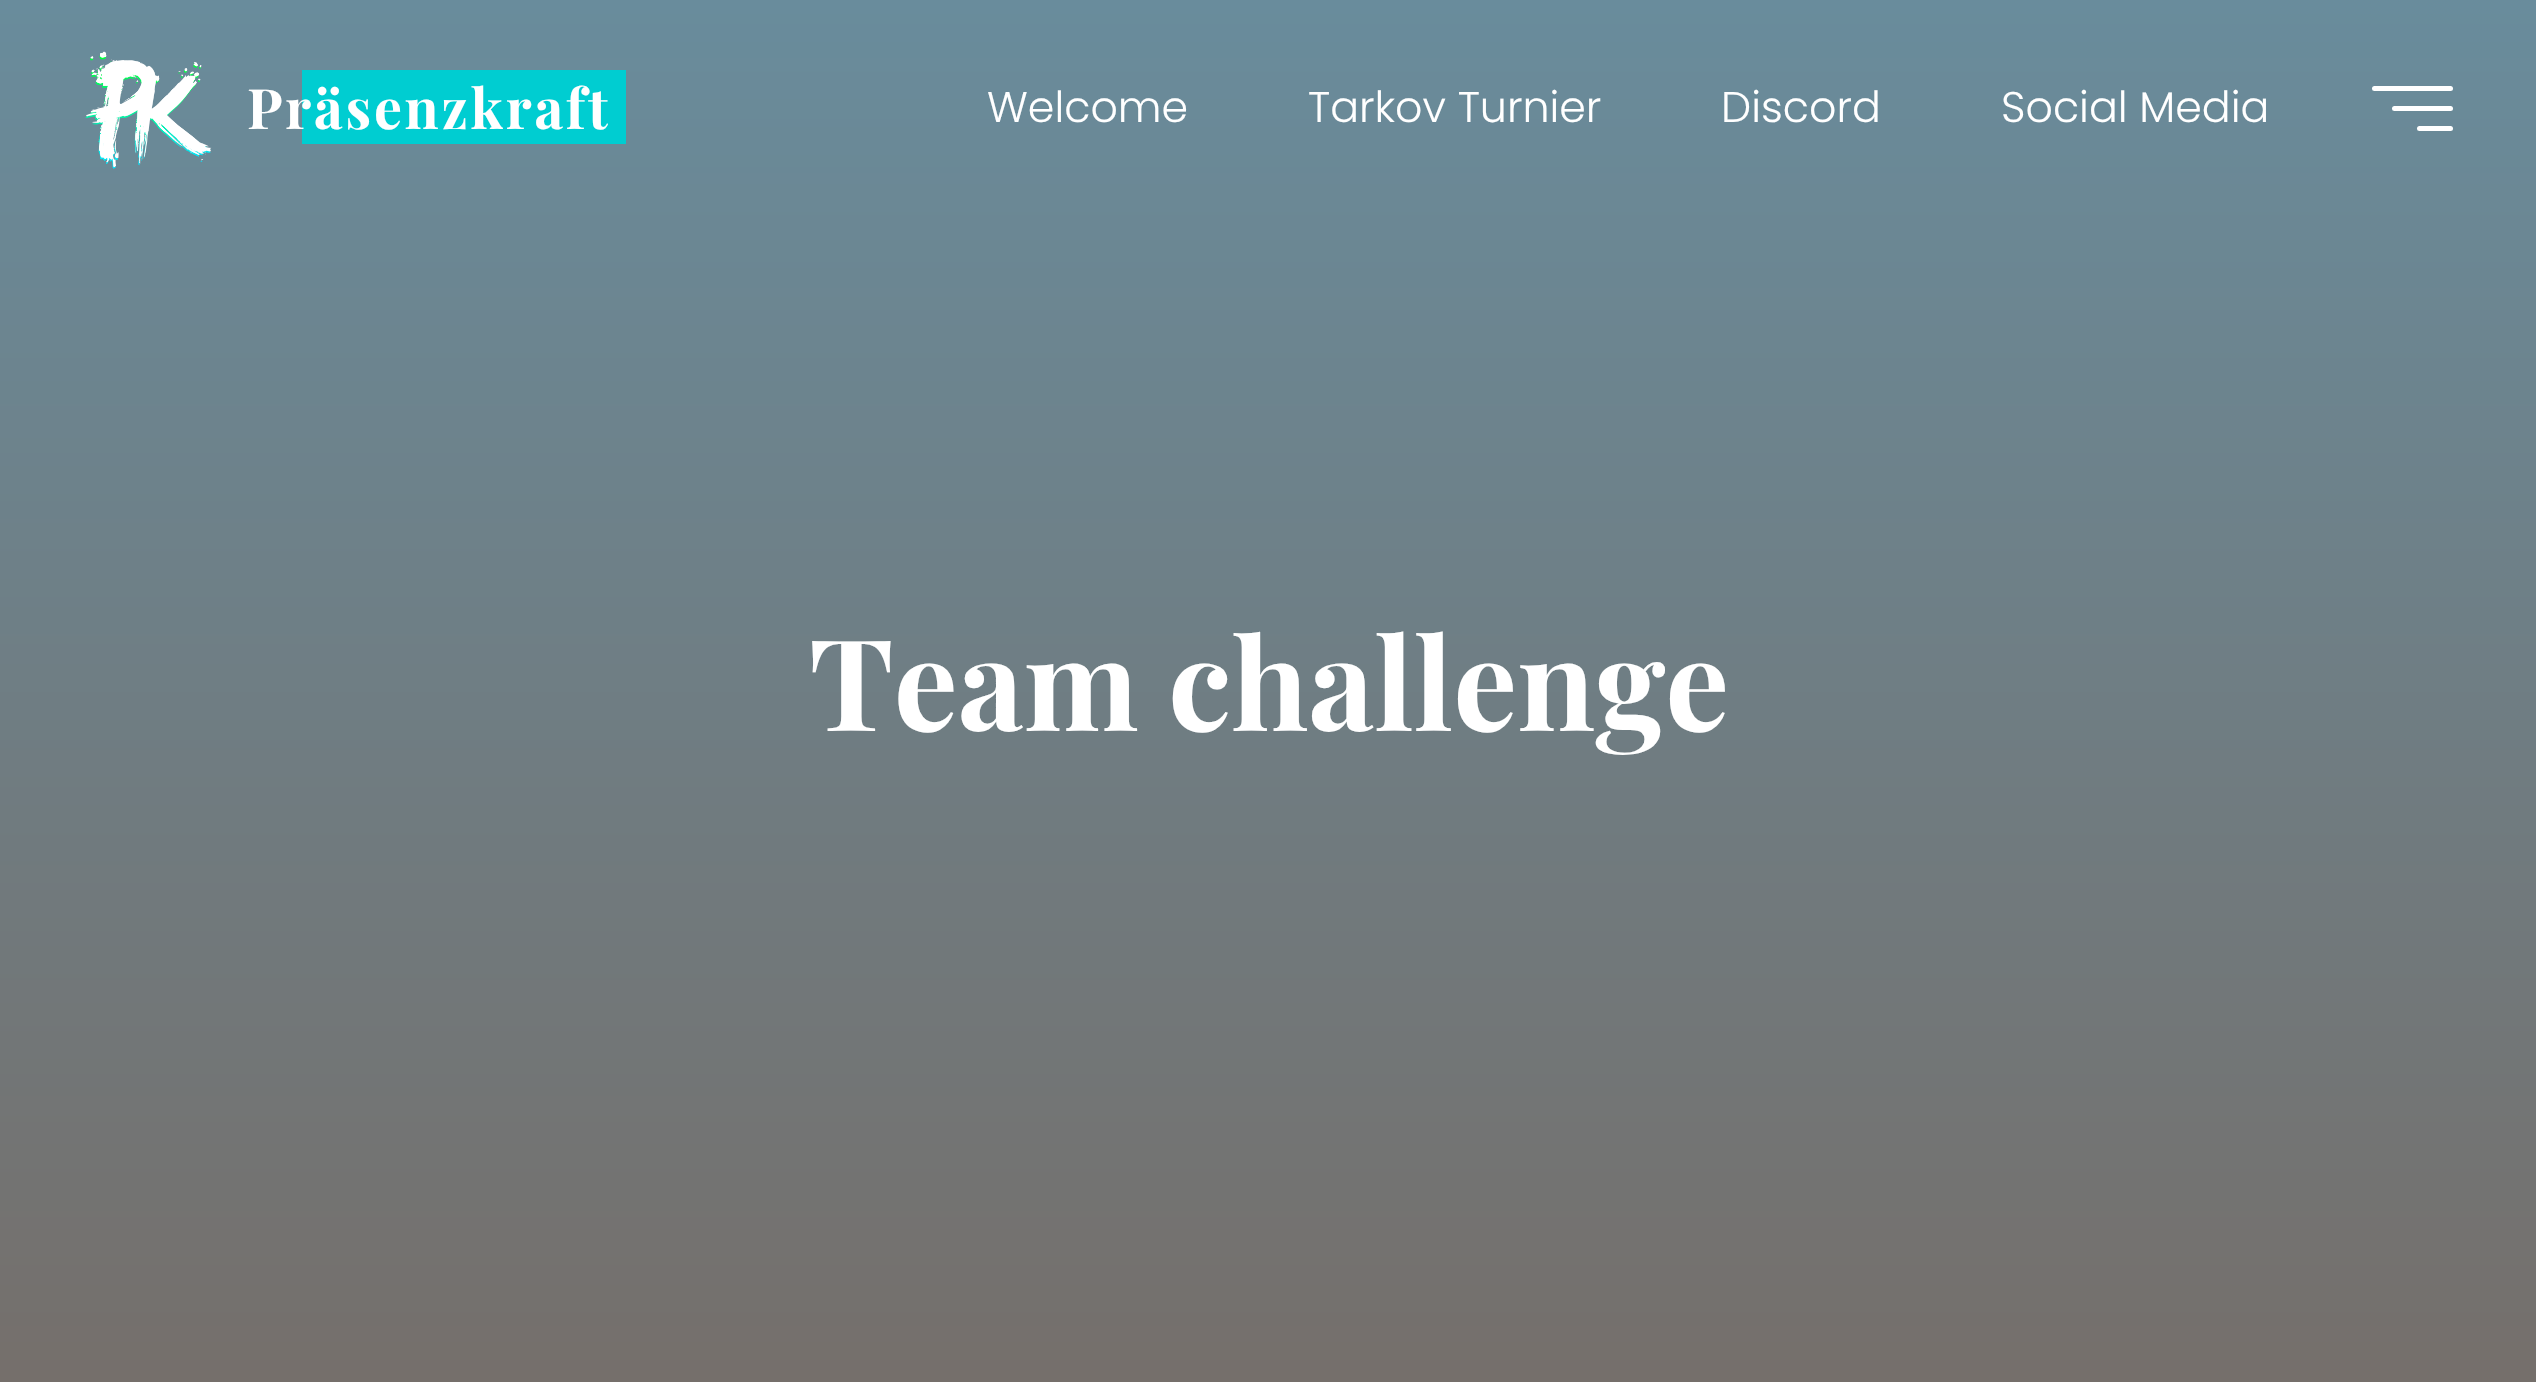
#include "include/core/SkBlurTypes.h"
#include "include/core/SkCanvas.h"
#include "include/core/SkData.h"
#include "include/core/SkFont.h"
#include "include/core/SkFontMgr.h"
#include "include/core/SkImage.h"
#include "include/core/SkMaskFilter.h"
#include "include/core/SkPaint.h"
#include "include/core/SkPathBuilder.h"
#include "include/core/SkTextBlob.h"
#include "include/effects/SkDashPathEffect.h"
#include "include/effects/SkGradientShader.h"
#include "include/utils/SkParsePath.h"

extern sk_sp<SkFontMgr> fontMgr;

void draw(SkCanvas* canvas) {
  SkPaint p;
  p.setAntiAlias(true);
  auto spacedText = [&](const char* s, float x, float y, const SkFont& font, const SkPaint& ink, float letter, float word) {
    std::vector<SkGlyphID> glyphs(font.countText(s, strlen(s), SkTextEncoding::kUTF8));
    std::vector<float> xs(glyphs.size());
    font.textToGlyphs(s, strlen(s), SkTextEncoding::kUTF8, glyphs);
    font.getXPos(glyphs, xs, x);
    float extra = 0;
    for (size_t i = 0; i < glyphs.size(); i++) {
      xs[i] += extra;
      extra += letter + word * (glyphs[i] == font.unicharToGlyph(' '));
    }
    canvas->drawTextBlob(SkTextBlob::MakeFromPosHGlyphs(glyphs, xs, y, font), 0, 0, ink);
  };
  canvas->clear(SK_ColorWHITE);
  {
    const SkColor colors[] = {SkColorSetRGB(105, 140, 156), SkColorSetRGB(117, 111, 107)};
    const float stops[] = {0, 1};
    const SkPoint ends[] = {{1269, 0}, {1269, 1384}};
    p.setShader(SkGradientShader::MakeLinear(ends, colors, stops, 2, SkTileMode::kClamp));
    p.setAlpha(255);
  }
  canvas->drawRect(SkRect::MakeLTRB(0, 0, 2536, 1382), p);
  canvas->drawImageRect(SkImages::DeferredFromEncodedData(SkData::MakeFromFileName("images/1.png")), SkRect::MakeLTRB(85, 51, 212, 169), SkSamplingOptions());
  p.setShader(nullptr);
  p.setColor(SkColorSetRGB(0, 205, 209));
  canvas->drawRect(SkRect::MakeLTRB(302, 70, 626, 144), p);
  p.setColor(SK_ColorWHITE);
  canvas->drawRoundRect(SkRect::MakeLTRB(2372, 86, 2453, 91), 2.5f, 2.5f, p);
  canvas->drawRoundRect(SkRect::MakeLTRB(2392, 106, 2453, 111), 2.5f, 2.5f, p);
  canvas->drawRoundRect(SkRect::MakeLTRB(2417, 126, 2453, 131), 2.5f, 2.5f, p);
  SkFont font1(fontMgr->matchFamilyStyle("Playfair Display", SkFontStyle::Bold()), 55.5f);
  font1.setSubpixel(true);
  spacedText("Präsenzkraft", 247, 129, font1, p, 2.75f, 0);
  SkFont font2(fontMgr->matchFamilyStyle("Poppins", SkFontStyle(300, SkFontStyle::kNormal_Width, SkFontStyle::kUpright_Slant)), 42.75f);
  font2.setSubpixel(true);
  canvas->drawString("Welcome", 987, 122, font2, p);
  canvas->drawString("Tarkov Turnier", 1308, 122, font2, p);
  canvas->drawString("Discord", 1721, 122, font2, p);
  canvas->drawString("Social Media", 2001, 122, font2, p);
  SkFont font3(fontMgr->matchFamilyStyle("Playfair Display", SkFontStyle::Bold()), 127);
  font3.setSubpixel(true);
  canvas->drawString("Team challenge", 809, 731, font3, p);
}
